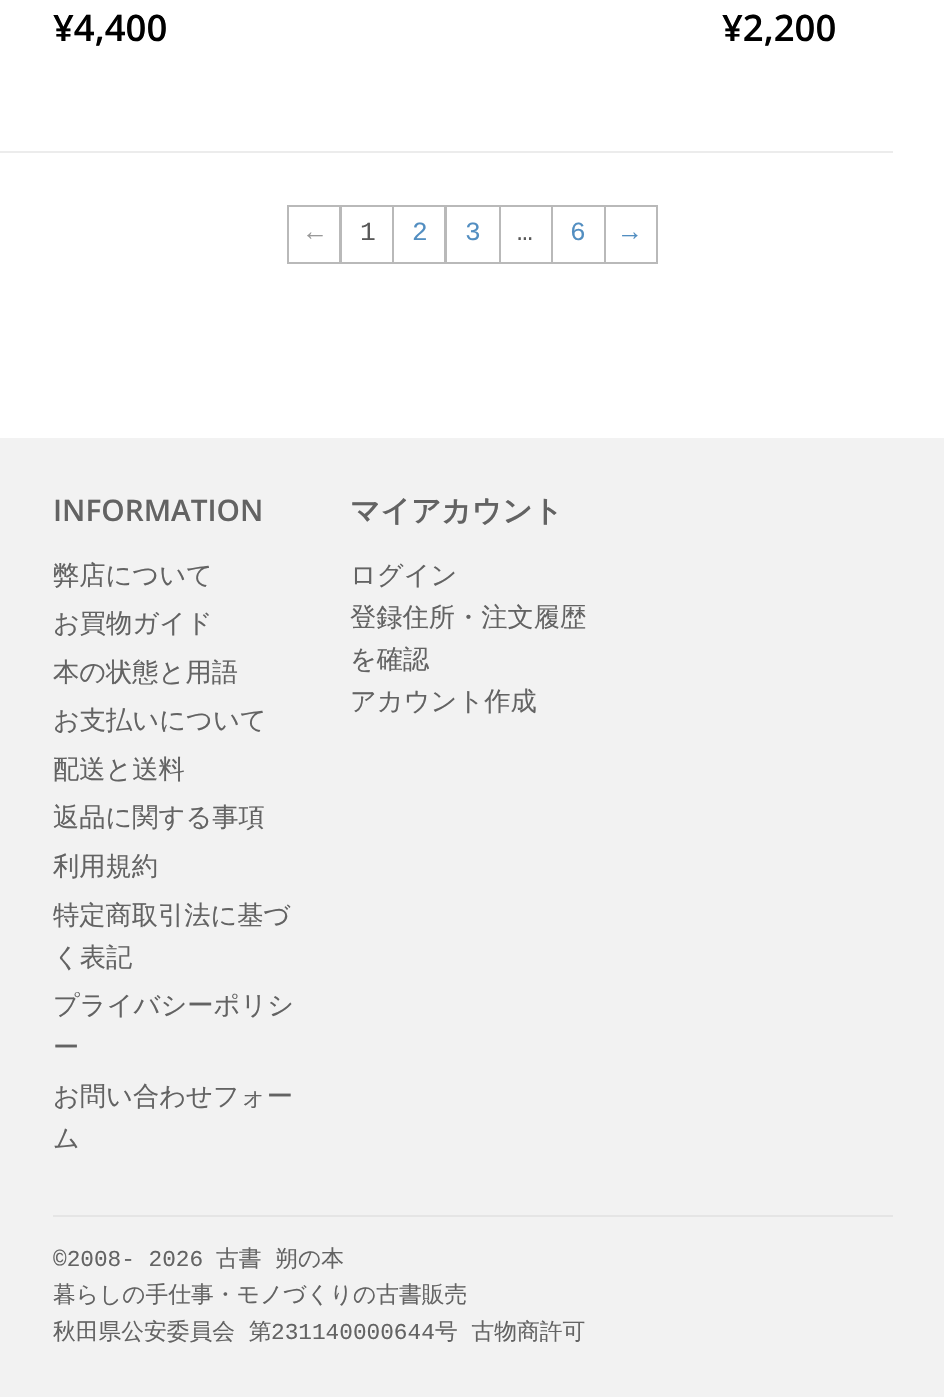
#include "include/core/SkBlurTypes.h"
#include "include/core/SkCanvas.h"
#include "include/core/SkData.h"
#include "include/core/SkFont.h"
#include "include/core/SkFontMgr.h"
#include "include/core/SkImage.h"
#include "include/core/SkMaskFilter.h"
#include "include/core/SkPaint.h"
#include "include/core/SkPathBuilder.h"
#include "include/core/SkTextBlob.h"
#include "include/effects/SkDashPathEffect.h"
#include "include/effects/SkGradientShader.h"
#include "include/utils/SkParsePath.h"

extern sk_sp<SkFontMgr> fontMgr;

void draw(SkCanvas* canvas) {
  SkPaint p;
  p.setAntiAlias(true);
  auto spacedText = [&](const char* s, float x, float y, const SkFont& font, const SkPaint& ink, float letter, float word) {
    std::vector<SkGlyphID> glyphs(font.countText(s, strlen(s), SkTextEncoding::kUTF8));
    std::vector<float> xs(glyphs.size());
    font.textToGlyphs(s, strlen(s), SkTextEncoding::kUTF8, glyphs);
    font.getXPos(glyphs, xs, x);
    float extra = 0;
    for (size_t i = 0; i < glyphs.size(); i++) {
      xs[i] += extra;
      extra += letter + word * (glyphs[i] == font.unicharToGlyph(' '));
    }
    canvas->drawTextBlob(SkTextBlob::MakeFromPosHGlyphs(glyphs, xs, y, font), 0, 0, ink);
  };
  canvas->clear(SK_ColorWHITE);
  p.setColor(SkColorSetRGB(236, 236, 236));
  canvas->drawRect(SkRect::MakeLTRB(0, 151, 893, 153), p);
  p.setStyle(SkPaint::kStroke_Style);
  p.setStrokeWidth(2);
  p.setColor(SkColorSetRGB(185, 185, 185));
  canvas->drawRect(SkRect::MakeLTRB(288, 206, 340, 263), p);
  canvas->drawRect(SkRect::MakeLTRB(393, 206, 445, 263), p);
  canvas->drawRect(SkRect::MakeLTRB(341, 206, 393, 263), p);
  canvas->drawRect(SkRect::MakeLTRB(446, 206, 500, 263), p);
  canvas->drawRect(SkRect::MakeLTRB(500, 206, 552, 263), p);
  canvas->drawRect(SkRect::MakeLTRB(552, 206, 605, 263), p);
  canvas->drawRect(SkRect::MakeLTRB(605, 206, 657, 263), p);
  p.setStyle(SkPaint::kFill_Style);
  p.setColor(SkColorSetRGB(242, 242, 242));
  canvas->drawRect(SkRect::MakeLTRB(0, 438, 944, 1397), p);
  p.setColor(SkColorSetRGB(229, 229, 229));
  canvas->drawRect(SkRect::MakeLTRB(53, 1215, 893, 1217), p);
  SkFont font1(fontMgr->matchFamilyStyle("Open Sans", SkFontStyle(600, SkFontStyle::kNormal_Width, SkFontStyle::kUpright_Slant)), 36.5f);
  font1.setSubpixel(true);
  p.setColor(SK_ColorBLACK);
  canvas->drawString("¥4,400", 53, 41, font1, p);
  canvas->drawString("¥2,200", 722, 41, font1, p);
  SkFont font2(fontMgr->matchFamilyStyle("Liberation Mono", SkFontStyle::Normal()), 26.25f);
  font2.setSubpixel(true);
  p.setColor(SkColorSetRGB(153, 153, 153));
  canvas->drawString("←", 307, 240, font2, p);
  p.setColor(SkColorSetRGB(88, 88, 88));
  canvas->drawString("1", 360, 240, font2, p);
  p.setColor(SkColorSetRGB(82, 142, 193));
  canvas->drawString("2", 412, 240, font2, p);
  canvas->drawString("3", 465, 240, font2, p);
  p.setColor(SkColorSetRGB(88, 88, 88));
  canvas->drawString("…", 517, 240, font2, p);
  p.setColor(SkColorSetRGB(82, 142, 193));
  canvas->drawString("6", 570, 240, font2, p);
  canvas->drawString("→", 622, 240, font2, p);
  SkFont font3(fontMgr->matchFamilyStyle("Open Sans", SkFontStyle(600, SkFontStyle::kNormal_Width, SkFontStyle::kUpright_Slant)), 29.75f);
  font3.setSubpixel(true);
  p.setColor(SkColorSetRGB(99, 99, 99));
  canvas->drawString("INFORMATION", 53, 521, font3, p);
  SkFont font4(fontMgr->matchFamilyStyle("WenQuanYi Zen Hei", SkFontStyle(500, SkFontStyle::kNormal_Width, SkFontStyle::kUpright_Slant)), 26.25f);
  font4.setSubpixel(true);
  canvas->drawString("弊店について", 53, 584, font4, p);
  canvas->drawString("お買物ガイド", 53, 632, font4, p);
  canvas->drawString("本の状態と用語", 53, 681, font4, p);
  canvas->drawString("お支払いについて", 53, 729, font4, p);
  canvas->drawString("配送と送料", 53, 778, font4, p);
  canvas->drawString("返品に関する事項", 53, 826, font4, p);
  canvas->drawString("利用規約", 53, 875, font4, p);
  canvas->drawString("特定商取引法に基づ", 53, 924, font4, p);
  canvas->drawString("く表記", 53, 966, font4, p);
  canvas->drawString("プライバシーポリシ", 53, 1014, font4, p);
  canvas->drawString("ー", 53, 1056, font4, p);
  canvas->drawString("お問い合わせフォー", 53, 1105, font4, p);
  canvas->drawString("ム", 53, 1147, font4, p);
  SkFont font5(fontMgr->matchFamilyStyle("WenQuanYi Zen Hei", SkFontStyle::Bold()), 29.75f);
  font5.setSubpixel(true);
  canvas->drawString("マイアカウント", 350, 521, font5, p);
  canvas->drawString("ログイン", 350, 584, font4, p);
  canvas->drawString("登録住所・注文履歴", 350, 626, font4, p);
  canvas->drawString("を確認", 350, 668, font4, p);
  canvas->drawString("アカウント作成", 350, 710, font4, p);
  SkFont font6(fontMgr->matchFamilyStyle("Liberation Mono", SkFontStyle::Normal()), 22.75f);
  font6.setSubpixel(true);
  canvas->drawString("©2008- 2026", 53, 1266, font6, p);
  SkFont font7(fontMgr->matchFamilyStyle("WenQuanYi Zen Hei", SkFontStyle(500, SkFontStyle::kNormal_Width, SkFontStyle::kUpright_Slant)), 22.75f);
  font7.setSubpixel(true);
  spacedText("古書 朔の本", 216, 1266, font7, p, 0, 7);
  canvas->drawString("暮らしの手仕事・モノづくりの古書販売", 53, 1302, font7, p);
  spacedText("秋田県公安委員会 第", 53, 1339, font7, p, 0, 7);
  canvas->drawString("231140000644", 271, 1339, font6, p);
  spacedText("号 古物商許可", 435, 1339, font7, p, 0, 7);
}
